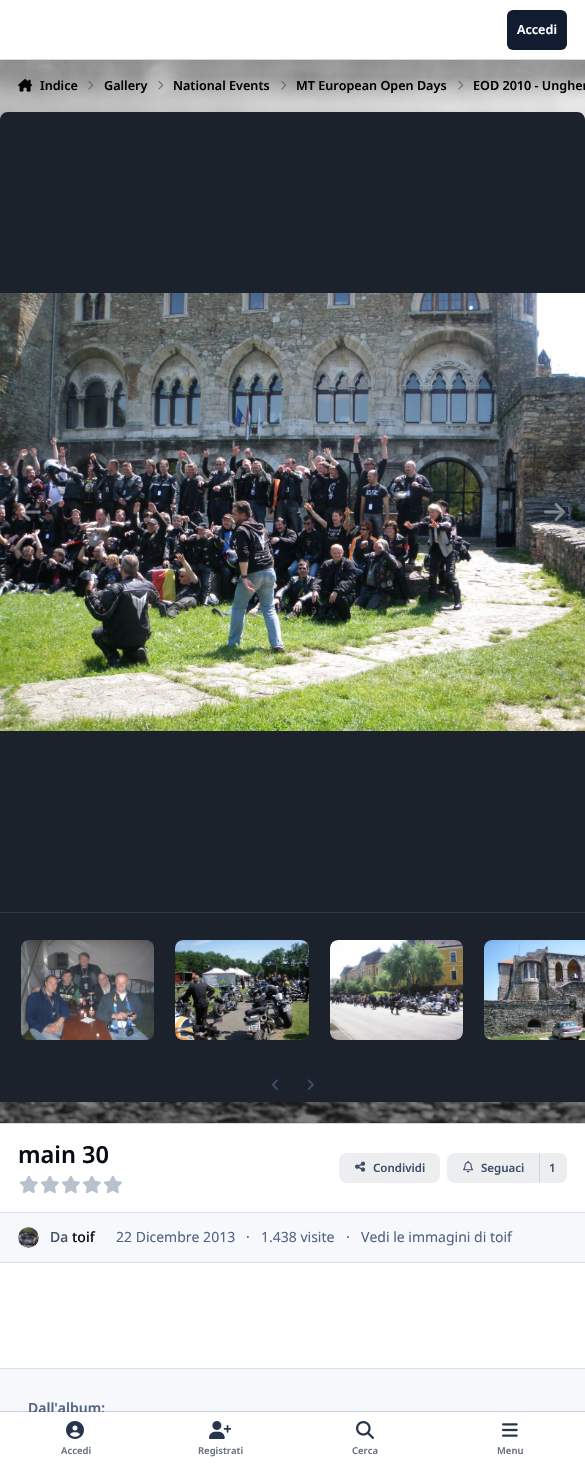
#include "include/core/SkBlurTypes.h"
#include "include/core/SkCanvas.h"
#include "include/core/SkData.h"
#include "include/core/SkFont.h"
#include "include/core/SkFontMgr.h"
#include "include/core/SkImage.h"
#include "include/core/SkMaskFilter.h"
#include "include/core/SkPaint.h"
#include "include/core/SkPathBuilder.h"
#include "include/core/SkTextBlob.h"
#include "include/effects/SkDashPathEffect.h"
#include "include/effects/SkGradientShader.h"
#include "include/utils/SkParsePath.h"

extern sk_sp<SkFontMgr> fontMgr;

void draw(SkCanvas* canvas) {
  SkPaint p;
  p.setAntiAlias(true);
  canvas->clear(SK_ColorWHITE);
  canvas->drawImageRect(SkImages::DeferredFromEncodedData(SkData::MakeFromFileName("images/1.png")), SkRect::MakeLTRB(0, 60, 585, 1123), SkSamplingOptions());
  p.setColor(SkColorSetRGB(218, 218, 220));
  canvas->drawRect(SkRect::MakeLTRB(0, 59, 585, 60), p);
  p.setColor(SkColorSetRGB(17, 28, 49));
  canvas->drawRoundRect(SkRect::MakeLTRB(507, 10, 567, 50), 6, 6, p);
  canvas->drawImageRect(SkImages::DeferredFromEncodedData(SkData::MakeFromFileName("images/2.png")), SkRect::MakeLTRB(18, 79, 33, 92), SkSamplingOptions());
  canvas->drawImageRect(SkImages::DeferredFromEncodedData(SkData::MakeFromFileName("images/3.png")), SkRect::MakeLTRB(88, 81, 94, 90), SkSamplingOptions());
  canvas->drawImageRect(SkImages::DeferredFromEncodedData(SkData::MakeFromFileName("images/4.png")), SkRect::MakeLTRB(158, 80, 164, 90), SkSamplingOptions());
  canvas->drawImageRect(SkImages::DeferredFromEncodedData(SkData::MakeFromFileName("images/5.png")), SkRect::MakeLTRB(281, 80, 287, 90), SkSamplingOptions());
  canvas->drawImageRect(SkImages::DeferredFromEncodedData(SkData::MakeFromFileName("images/6.png")), SkRect::MakeLTRB(458, 80, 464, 90), SkSamplingOptions());
  p.setColor(SkColorSetRGB(28, 34, 43));
  canvas->drawPath(SkPathBuilder().moveTo(8, 112).lineTo(577, 112).cubicTo(581.5f, 112, 585, 115.5f, 585, 120).lineTo(585, 912).lineTo(0, 912).lineTo(0, 120).cubicTo(0, 115.5f, 3.5f, 112, 8, 112).close().detach(), p);
  canvas->drawImageRect(SkImages::DeferredFromEncodedData(SkData::MakeFromFileName("images/7.png")), SkRect::MakeLTRB(0, 293, 585, 731), SkSamplingOptions());
  canvas->drawImageRect(SkImages::DeferredFromEncodedData(SkData::MakeFromFileName("images/8.png")), SkRect::MakeLTRB(20, 503, 41, 521), SkSamplingOptions());
  canvas->drawImageRect(SkImages::DeferredFromEncodedData(SkData::MakeFromFileName("images/9.png")), SkRect::MakeLTRB(544, 503, 565, 521), SkSamplingOptions());
  canvas->drawRect(SkRect::MakeLTRB(0, 913, 585, 1102), p);
  p.setColor(SkColorSetRGB(51, 56, 64));
  canvas->drawRect(SkRect::MakeLTRB(0, 912, 585, 913), p);
  p.setColor(SkColorSetRGB(56, 72, 98));
  canvas->drawRoundRect(SkRect::MakeLTRB(21, 940, 154, 1040), 8, 8, p);
  canvas->drawImageRect(SkImages::DeferredFromEncodedData(SkData::MakeFromFileName("images/10.png")), SkRect::MakeLTRB(21, 940, 154, 1040), SkSamplingOptions());
  canvas->drawRoundRect(SkRect::MakeLTRB(175, 940, 309, 1040), 8, 8, p);
  canvas->drawImageRect(SkImages::DeferredFromEncodedData(SkData::MakeFromFileName("images/11.png")), SkRect::MakeLTRB(175, 940, 309, 1040), SkSamplingOptions());
  canvas->drawRoundRect(SkRect::MakeLTRB(330, 940, 463, 1040), 8, 8, p);
  canvas->drawImageRect(SkImages::DeferredFromEncodedData(SkData::MakeFromFileName("images/12.png")), SkRect::MakeLTRB(330, 940, 463, 1040), SkSamplingOptions());
  canvas->drawPath(SkPathBuilder().moveTo(492, 940).lineTo(585, 940).lineTo(585, 1040).lineTo(492, 1040).cubicTo(487.5f, 1040, 484, 1036.5f, 484, 1032).lineTo(484, 948).cubicTo(484, 943.5f, 487.5f, 940, 492, 940).close().detach(), p);
  canvas->drawImageRect(SkImages::DeferredFromEncodedData(SkData::MakeFromFileName("images/13.png")), SkRect::MakeLTRB(484, 940, 585, 1040), SkSamplingOptions());
  canvas->drawImageRect(SkImages::DeferredFromEncodedData(SkData::MakeFromFileName("images/14.png")), SkRect::MakeLTRB(272, 1079, 278, 1090), SkSamplingOptions());
  canvas->drawImageRect(SkImages::DeferredFromEncodedData(SkData::MakeFromFileName("images/15.png")), SkRect::MakeLTRB(307, 1079, 314, 1090), SkSamplingOptions());
  p.setColor(SkColorSetRGB(215, 223, 234));
  canvas->drawRect(SkRect::MakeLTRB(0, 1368, 585, 1369), p);
  p.setColor(SkColorSetRGB(213, 219, 230));
  canvas->drawRect(SkRect::MakeLTRB(0, 1123, 585, 1124), p);
  p.setColor(SkColorSetRGB(215, 223, 234));
  canvas->drawRect(SkRect::MakeLTRB(0, 1262, 585, 1263), p);
  canvas->drawImageRect(SkImages::DeferredFromEncodedData(SkData::MakeFromFileName("images/16.png")), SkRect::MakeLTRB(19, 1175, 38, 1194), SkSamplingOptions());
  canvas->drawImageRect(SkImages::DeferredFromEncodedData(SkData::MakeFromFileName("images/16.png")), SkRect::MakeLTRB(40, 1175, 59, 1194), SkSamplingOptions());
  canvas->drawImageRect(SkImages::DeferredFromEncodedData(SkData::MakeFromFileName("images/16.png")), SkRect::MakeLTRB(61, 1175, 80, 1194), SkSamplingOptions());
  canvas->drawImageRect(SkImages::DeferredFromEncodedData(SkData::MakeFromFileName("images/16.png")), SkRect::MakeLTRB(82, 1175, 101, 1194), SkSamplingOptions());
  canvas->drawImageRect(SkImages::DeferredFromEncodedData(SkData::MakeFromFileName("images/16.png")), SkRect::MakeLTRB(103, 1175, 122, 1194), SkSamplingOptions());
  p.setColor(SkColorSetRGB(236, 238, 240));
  canvas->drawRoundRect(SkRect::MakeLTRB(339, 1153, 440, 1183), 8, 8, p);
  canvas->drawImageRect(SkImages::DeferredFromEncodedData(SkData::MakeFromFileName("images/17.png")), SkRect::MakeLTRB(355, 1161, 366, 1172), SkSamplingOptions());
  canvas->drawRoundRect(SkRect::MakeLTRB(447, 1153, 567, 1183), 8, 8, p);
  canvas->drawImageRect(SkImages::DeferredFromEncodedData(SkData::MakeFromFileName("images/18.png")), SkRect::MakeLTRB(463, 1160, 474, 1173), SkSamplingOptions());
  p.setColor(SkColorSetRGB(210, 214, 220));
  canvas->drawRect(SkRect::MakeLTRB(539, 1154, 540, 1182), p);
  p.setColor(SkColorSetRGB(247, 248, 251));
  canvas->drawRect(SkRect::MakeLTRB(0, 1213, 585, 1262), p);
  p.setColor(SkColorSetRGB(215, 223, 234));
  canvas->drawRect(SkRect::MakeLTRB(0, 1212, 585, 1213), p);
  p.setColor(SkColorSetRGB(229, 234, 242));
  canvas->drawCircle(28.5f, 1237.5f, 10.5f, p);
  canvas->drawImageRect(SkImages::DeferredFromEncodedData(SkData::MakeFromFileName("images/19.png")), SkRect::MakeLTRB(18, 1227, 39, 1248), SkSamplingOptions());
  p.setColor(SkColorSetRGB(247, 248, 251));
  canvas->drawRect(SkRect::MakeLTRB(0, 1369, 585, 1412), p);
  canvas->drawImageRect(SkImages::DeferredFromEncodedData(SkData::MakeFromFileName("images/20.png")), SkRect::MakeLTRB(66, 1421, 84, 1439), SkSamplingOptions());
  canvas->drawImageRect(SkImages::DeferredFromEncodedData(SkData::MakeFromFileName("images/21.png")), SkRect::MakeLTRB(209, 1421, 231, 1439), SkSamplingOptions());
  canvas->drawImageRect(SkImages::DeferredFromEncodedData(SkData::MakeFromFileName("images/22.png")), SkRect::MakeLTRB(356, 1421, 374, 1439), SkSamplingOptions());
  canvas->drawImageRect(SkImages::DeferredFromEncodedData(SkData::MakeFromFileName("images/23.png")), SkRect::MakeLTRB(502, 1423, 518, 1437), SkSamplingOptions());
  SkFont font1(fontMgr->matchFamilyStyle("Noto Sans", SkFontStyle(600, SkFontStyle::kNormal_Width, SkFontStyle::kUpright_Slant)), 12.6f);
  font1.setSubpixel(true);
  p.setColor(SK_ColorWHITE);
  canvas->drawString("Accedi", 517, 34, font1, p);
  p.setColor(SkColorSetRGB(2, 3, 5));
  canvas->drawString("Indice", 40, 90, font1, p);
  canvas->drawString("Gallery", 104, 90, font1, p);
  canvas->drawString("National Events", 173, 90, font1, p);
  canvas->drawString("MT European Open Days", 296, 90, font1, p);
  canvas->drawString("EOD 2010 - Ungher", 473, 90, font1, p);
  SkFont font2(fontMgr->matchFamilyStyle("Noto Sans", SkFontStyle(600, SkFontStyle::kNormal_Width, SkFontStyle::kUpright_Slant)), 23.5f);
  font2.setSubpixel(true);
  p.setColor(SkColorSetRGB(6, 11, 20));
  canvas->drawString("main 30", 18, 1163, font2, p);
  SkFont font3(fontMgr->matchFamilyStyle("Noto Sans", SkFontStyle(600, SkFontStyle::kNormal_Width, SkFontStyle::kUpright_Slant)), 11.5f);
  font3.setSubpixel(true);
  p.setColor(SkColorSetRGB(64, 80, 107));
  canvas->drawString("Condividi", 373, 1172, font3, p);
  canvas->drawString("Seguaci", 481, 1172, font3, p);
  canvas->drawString("1", 549, 1172, font3, p);
  SkFont font4(fontMgr->matchFamilyStyle("Noto Sans", SkFontStyle(500, SkFontStyle::kNormal_Width, SkFontStyle::kUpright_Slant)), 14);
  font4.setSubpixel(true);
  canvas->drawString("Da", 50, 1242, font4, p);
  p.setColor(SkColorSetRGB(6, 11, 20));
  canvas->drawString("toif", 72, 1242, font4, p);
  SkFont font5(fontMgr->matchFamilyStyle("Noto Sans", SkFontStyle::Normal()), 14);
  font5.setSubpixel(true);
  p.setColor(SkColorSetRGB(81, 100, 131));
  canvas->drawString("22 Dicembre 2013", 116, 1242, font5, p);
  canvas->drawString("·", 246, 1242, font5, p);
  canvas->drawString("1.438 visite", 261, 1242, font5, p);
  canvas->drawString("·", 346, 1242, font5, p);
  canvas->drawString("Vedi le immagini di toif", 361, 1242, font5, p);
  SkFont font6(fontMgr->matchFamilyStyle("Noto Sans", SkFontStyle(600, SkFontStyle::kNormal_Width, SkFontStyle::kUpright_Slant)), 14);
  font6.setSubpixel(true);
  canvas->drawString("Dall'album:", 28, 1413, font6, p);
  p.setColor(SkColorSetARGB(64, 64, 80, 107));
  canvas->drawRect(SkRect::MakeLTRB(0, 1411, 585, 1412), p);
  p.setColor(SK_ColorWHITE);
  canvas->drawRect(SkRect::MakeLTRB(29, 1412, 105, 1414), p);
  SkFont font7(fontMgr->matchFamilyStyle("Noto Sans", SkFontStyle(600, SkFontStyle::kNormal_Width, SkFontStyle::kUpright_Slant)), 9.5f);
  font7.setSubpixel(true);
  p.setColor(SkColorSetRGB(105, 114, 130));
  canvas->drawString("Accedi", 61, 1454, font7, p);
  canvas->drawString("Registrati", 198, 1454, font7, p);
  canvas->drawString("Cerca", 352, 1454, font7, p);
  canvas->drawString("Menu", 497, 1454, font7, p);
}
